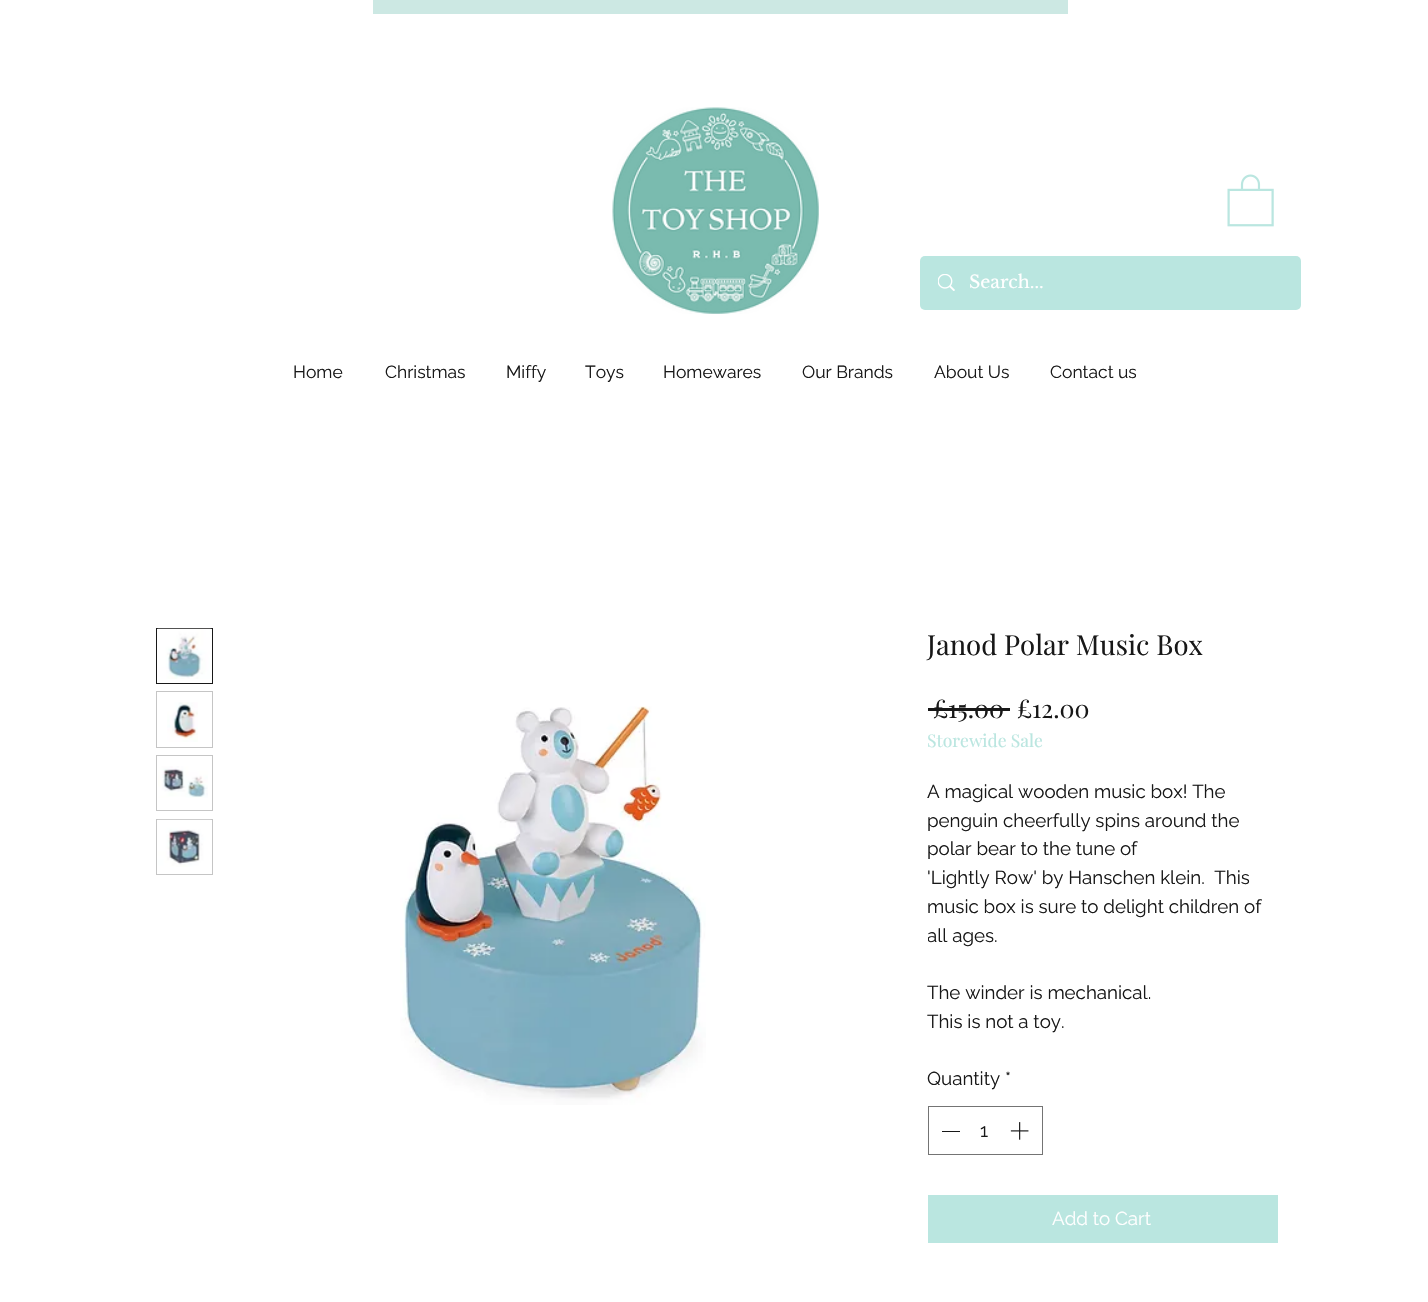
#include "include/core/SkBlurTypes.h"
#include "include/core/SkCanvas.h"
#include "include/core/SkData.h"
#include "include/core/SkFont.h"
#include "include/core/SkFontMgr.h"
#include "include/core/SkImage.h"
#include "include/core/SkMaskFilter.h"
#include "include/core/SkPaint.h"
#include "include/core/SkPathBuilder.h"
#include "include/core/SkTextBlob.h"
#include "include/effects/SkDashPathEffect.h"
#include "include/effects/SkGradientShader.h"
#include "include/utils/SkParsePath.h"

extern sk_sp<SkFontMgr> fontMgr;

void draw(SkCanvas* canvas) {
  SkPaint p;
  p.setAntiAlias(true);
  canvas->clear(SK_ColorWHITE);
  p.setColor(SkColorSetRGB(204, 232, 227));
  canvas->drawRect(SkRect::MakeLTRB(373, 0, 1068, 14), p);
  canvas->drawImageRect(SkImages::DeferredFromEncodedData(SkData::MakeFromFileName("images/1.png")), SkRect::MakeLTRB(612, 107, 819, 314), SkSamplingOptions());
  canvas->drawImageRect(SkImages::DeferredFromEncodedData(SkData::MakeFromFileName("images/2.png")), SkRect::MakeLTRB(1227, 174, 1274, 227), SkSamplingOptions());
  p.setColor(SkColorSetRGB(186, 230, 224));
  canvas->drawRoundRect(SkRect::MakeLTRB(920, 256, 1301, 310), 5, 5, p);
  canvas->drawImageRect(SkImages::DeferredFromEncodedData(SkData::MakeFromFileName("images/3.png")), SkRect::MakeLTRB(938, 274, 955, 291), SkSamplingOptions());
  p.setStyle(SkPaint::kStroke_Style);
  p.setStrokeWidth(1);
  p.setColor(SkColorSetRGB(24, 24, 24));
  canvas->drawRect(SkRect::MakeLTRB(156.5f, 628.5f, 212.5f, 683.5f), p);
  canvas->drawImageRect(SkImages::DeferredFromEncodedData(SkData::MakeFromFileName("images/4.png")), SkRect::MakeLTRB(157, 628, 212, 679), SkSamplingOptions());
  p.setColor(SkColorSetRGB(197, 197, 197));
  canvas->drawRect(SkRect::MakeLTRB(156.5f, 691.5f, 212.5f, 747.5f), p);
  canvas->drawImageRect(SkImages::DeferredFromEncodedData(SkData::MakeFromFileName("images/5.png")), SkRect::MakeLTRB(167, 702, 198, 742), SkSamplingOptions());
  canvas->drawRect(SkRect::MakeLTRB(156.5f, 755.5f, 212.5f, 810.5f), p);
  canvas->drawImageRect(SkImages::DeferredFromEncodedData(SkData::MakeFromFileName("images/6.png")), SkRect::MakeLTRB(158, 766, 208, 798), SkSamplingOptions());
  canvas->drawRect(SkRect::MakeLTRB(156.5f, 819.5f, 212.5f, 874.5f), p);
  canvas->drawImageRect(SkImages::DeferredFromEncodedData(SkData::MakeFromFileName("images/7.png")), SkRect::MakeLTRB(157, 819, 211, 867), SkSamplingOptions());
  canvas->drawImageRect(SkImages::DeferredFromEncodedData(SkData::MakeFromFileName("images/8.png")), SkRect::MakeLTRB(400, 706, 706, 1105), SkSamplingOptions());
  p.setStyle(SkPaint::kFill_Style);
  p.setColor(SkColorSetRGB(24, 24, 24));
  canvas->drawRect(SkRect::MakeLTRB(928, 708, 1010, 711), p);
  p.setStyle(SkPaint::kStroke_Style);
  p.setColor(SkColorSetRGB(116, 116, 116));
  canvas->drawRect(SkRect::MakeLTRB(928.5f, 1106.5f, 1042.5f, 1154.5f), p);
  p.setStyle(SkPaint::kFill_Style);
  p.setColor(SkColorSetRGB(24, 24, 24));
  canvas->drawRect(SkRect::MakeLTRB(942, 1131, 960, 1132), p);
  canvas->drawImageRect(SkImages::DeferredFromEncodedData(SkData::MakeFromFileName("images/9.png")), SkRect::MakeLTRB(1010, 1122, 1029, 1140), SkSamplingOptions());
  p.setColor(SkColorSetRGB(186, 230, 224));
  canvas->drawRect(SkRect::MakeLTRB(928, 1195, 1278, 1243), p);
  SkFont font1(fontMgr->matchFamilyStyle("Libre Baskerville", SkFontStyle::Normal()), 17.5f);
  font1.setSubpixel(true);
  p.setColor(SK_ColorWHITE);
  canvas->drawString("Search...", 969, 288, font1, p);
  SkFont font2(fontMgr->matchFamilyStyle("Raleway", SkFontStyle::Normal()), 17.5f);
  font2.setSubpixel(true);
  p.setColor(SkColorSetRGB(24, 24, 24));
  canvas->drawString("Home", 293, 378, font2, p);
  canvas->drawString("Christmas", 385, 378, font2, p);
  canvas->drawString("Miffy", 506, 378, font2, p);
  canvas->drawString("Toys", 585, 378, font2, p);
  canvas->drawString("Homewares", 663, 378, font2, p);
  canvas->drawString("Our Brands", 802, 378, font2, p);
  canvas->drawString("About Us", 934, 378, font2, p);
  canvas->drawString("Contact us", 1050, 378, font2, p);
  SkFont font3(fontMgr->matchFamilyStyle("Playfair Display", SkFontStyle::Normal()), 27.5f);
  font3.setSubpixel(true);
  canvas->drawString("Janod Polar Music Box", 927, 655, font3, p);
  SkFont font4(fontMgr->matchFamilyStyle("Playfair Display", SkFontStyle::Normal()), 25);
  font4.setSubpixel(true);
  canvas->drawString("£15.00", 933, 718, font4, p);
  canvas->drawString("£12.00", 1017, 718, font4, p);
  SkFont font5(fontMgr->matchFamilyStyle("Playfair Display", SkFontStyle::Normal()), 17.5f);
  font5.setSubpixel(true);
  p.setColor(SkColorSetRGB(186, 230, 224));
  canvas->drawString("Storewide Sale", 927, 747, font5, p);
  SkFont font6(fontMgr->matchFamilyStyle("Raleway", SkFontStyle::Normal()), 18.75f);
  font6.setSubpixel(true);
  p.setColor(SkColorSetRGB(24, 24, 24));
  canvas->drawString("A magical wooden music box! The", 927, 798, font6, p);
  canvas->drawString("penguin cheerfully spins around the", 927, 827, font6, p);
  canvas->drawString("polar bear to the tune of", 927, 855, font6, p);
  canvas->drawString("'Lightly Row' by Hanschen klein.  This", 927, 884, font6, p);
  canvas->drawString("music box is sure to delight children of", 927, 913, font6, p);
  canvas->save();
  canvas->clipRect(SkRect::MakeLTRB(928, 778, 1278, 1036));
  canvas->drawString("all ages.", 927, 942, font6, p);
  canvas->restore();
  canvas->drawString("The winder is mechanical.", 927, 999, font6, p);
  canvas->drawString("This is not a toy.", 927, 1028, font6, p);
  canvas->drawString("Quantity *", 927, 1085, font6, p);
  canvas->drawString("1", 980, 1137, font6, p);
  p.setColor(SK_ColorWHITE);
  canvas->drawString("Add to Cart", 1052, 1225, font6, p);
}
